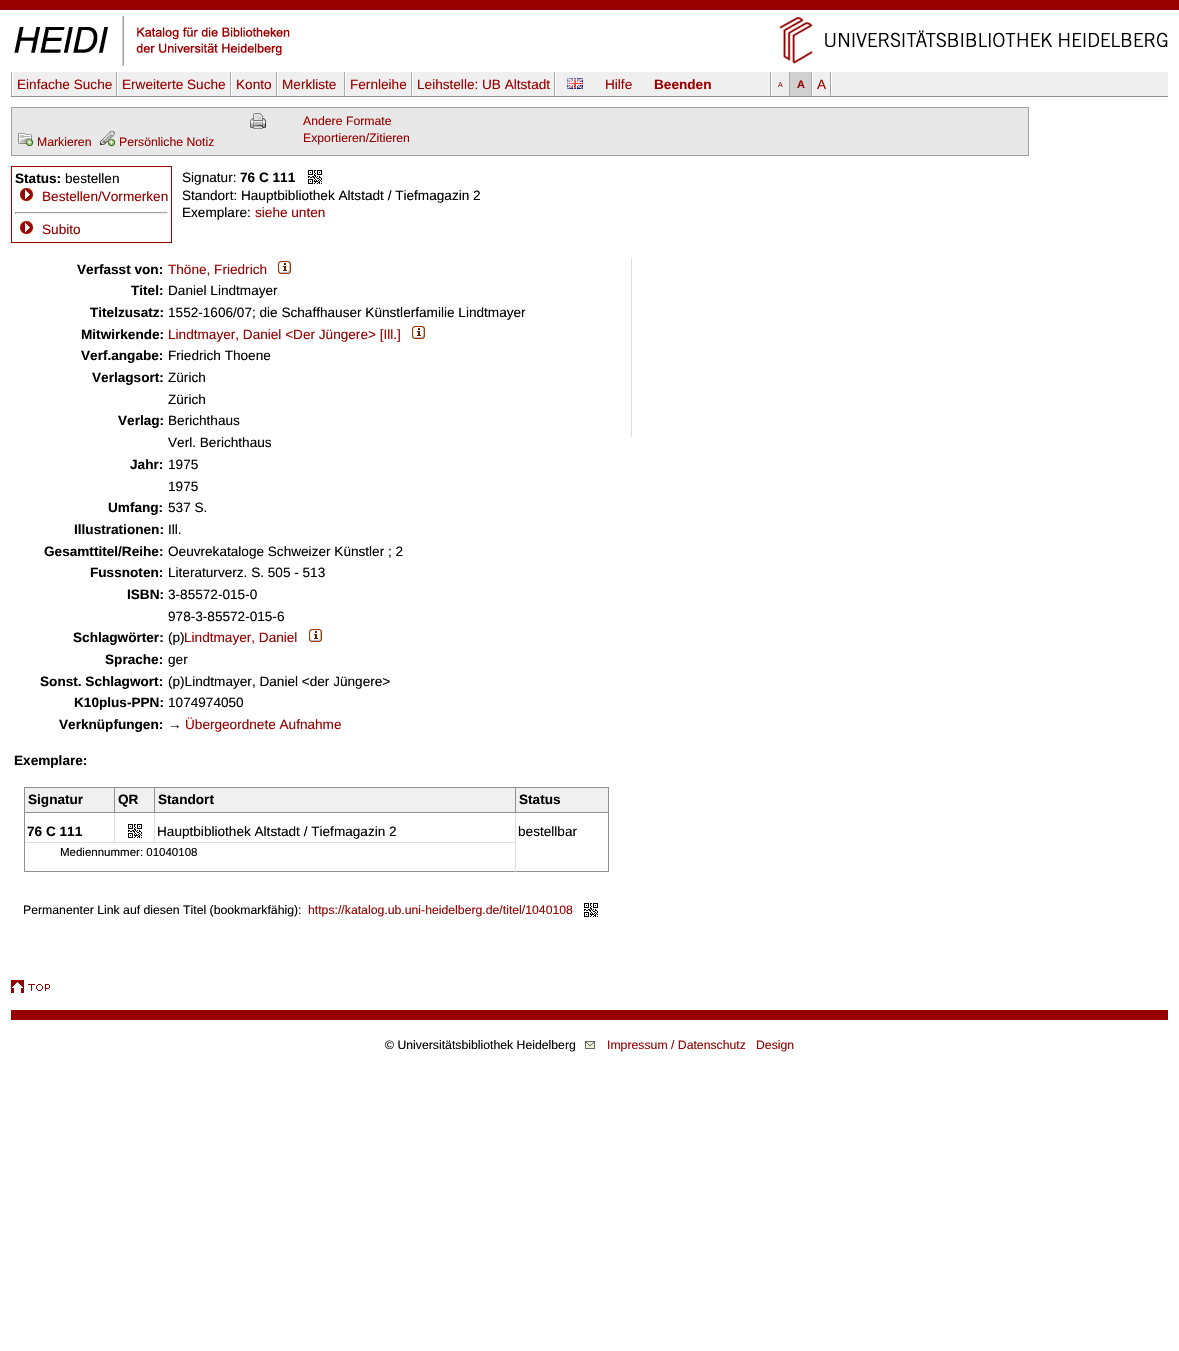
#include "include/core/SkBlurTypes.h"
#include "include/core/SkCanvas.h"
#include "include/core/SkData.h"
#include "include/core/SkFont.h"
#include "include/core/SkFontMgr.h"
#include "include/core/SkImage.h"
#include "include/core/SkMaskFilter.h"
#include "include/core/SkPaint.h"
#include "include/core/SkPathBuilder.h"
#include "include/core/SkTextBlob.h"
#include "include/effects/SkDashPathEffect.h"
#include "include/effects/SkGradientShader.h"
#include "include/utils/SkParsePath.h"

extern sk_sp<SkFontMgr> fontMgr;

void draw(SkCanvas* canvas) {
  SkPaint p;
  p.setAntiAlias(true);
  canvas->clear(SK_ColorWHITE);
  p.setColor(SkColorSetRGB(153, 0, 0));
  canvas->drawRect(SkRect::MakeLTRB(0, 0, 1179, 10), p);
  canvas->drawImageRect(SkImages::DeferredFromEncodedData(SkData::MakeFromFileName("images/1.png")), SkRect::MakeLTRB(14, 16, 290, 66), SkSamplingOptions());
  canvas->drawImageRect(SkImages::DeferredFromEncodedData(SkData::MakeFromFileName("images/2.png")), SkRect::MakeLTRB(779, 16, 1168, 64), SkSamplingOptions());
  p.setColor(SkColorSetRGB(239, 239, 239));
  canvas->drawRect(SkRect::MakeLTRB(13, 72, 1168, 96), p);
  p.setColor(SkColorSetRGB(144, 144, 144));
  canvas->drawRect(SkRect::MakeLTRB(11, 96, 1168, 97), p);
  p.setColor(SK_ColorWHITE);
  canvas->drawRect(SkRect::MakeLTRB(555, 72, 556, 96), p);
  p.setColor(SkColorSetRGB(170, 170, 170));
  canvas->drawRect(SkRect::MakeLTRB(11, 72, 12, 96), p);
  canvas->drawRect(SkRect::MakeLTRB(116, 72, 117, 96), p);
  canvas->drawRect(SkRect::MakeLTRB(230, 72, 231, 96), p);
  p.setColor(SK_ColorWHITE);
  canvas->drawRect(SkRect::MakeLTRB(117, 72, 118, 96), p);
  p.setColor(SkColorSetRGB(170, 170, 170));
  canvas->drawRect(SkRect::MakeLTRB(276, 72, 277, 96), p);
  p.setColor(SK_ColorWHITE);
  canvas->drawRect(SkRect::MakeLTRB(231, 72, 232, 96), p);
  p.setColor(SkColorSetRGB(170, 170, 170));
  canvas->drawRect(SkRect::MakeLTRB(344, 72, 345, 96), p);
  p.setColor(SK_ColorWHITE);
  canvas->drawRect(SkRect::MakeLTRB(277, 72, 278, 96), p);
  p.setColor(SkColorSetRGB(170, 170, 170));
  canvas->drawRect(SkRect::MakeLTRB(411, 72, 412, 96), p);
  p.setColor(SK_ColorWHITE);
  canvas->drawRect(SkRect::MakeLTRB(345, 72, 346, 96), p);
  p.setColor(SkColorSetRGB(170, 170, 170));
  canvas->drawRect(SkRect::MakeLTRB(554, 72, 555, 96), p);
  p.setColor(SK_ColorWHITE);
  canvas->drawRect(SkRect::MakeLTRB(412, 72, 413, 96), p);
  canvas->drawImageRect(SkImages::DeferredFromEncodedData(SkData::MakeFromFileName("images/3.png")), SkRect::MakeLTRB(567, 78, 583, 89), SkSamplingOptions());
  canvas->drawRect(SkRect::MakeLTRB(831, 72, 832, 96), p);
  p.setColor(SkColorSetRGB(170, 170, 170));
  canvas->drawRect(SkRect::MakeLTRB(770, 72, 771, 96), p);
  canvas->drawRect(SkRect::MakeLTRB(789, 72, 790, 96), p);
  p.setColor(SK_ColorWHITE);
  canvas->drawRect(SkRect::MakeLTRB(771, 72, 772, 96), p);
  p.setColor(SkColorSetRGB(208, 208, 208));
  canvas->drawRect(SkRect::MakeLTRB(790, 72, 811, 96), p);
  p.setColor(SkColorSetRGB(170, 170, 170));
  canvas->drawRect(SkRect::MakeLTRB(811, 72, 812, 96), p);
  canvas->drawRect(SkRect::MakeLTRB(830, 72, 831, 96), p);
  p.setColor(SK_ColorWHITE);
  canvas->drawRect(SkRect::MakeLTRB(812, 72, 813, 96), p);
  p.setColor(SkColorSetRGB(232, 232, 232));
  canvas->drawRect(SkRect::MakeLTRB(11.5f, 107.5f, 1028.5f, 155.5f), p);
  p.setStyle(SkPaint::kStroke_Style);
  p.setStrokeWidth(1);
  p.setColor(SkColorSetRGB(160, 160, 160));
  canvas->drawRect(SkRect::MakeLTRB(11.5f, 107.5f, 1028.5f, 155.5f), p);
  canvas->drawImageRect(SkImages::DeferredFromEncodedData(SkData::MakeFromFileName("images/4.png")), SkRect::MakeLTRB(18, 133, 33, 146), SkSamplingOptions());
  canvas->drawImageRect(SkImages::DeferredFromEncodedData(SkData::MakeFromFileName("images/5.png")), SkRect::MakeLTRB(100, 131, 115, 146), SkSamplingOptions());
  canvas->drawImageRect(SkImages::DeferredFromEncodedData(SkData::MakeFromFileName("images/6.png")), SkRect::MakeLTRB(250, 113, 266, 129), SkSamplingOptions());
  p.setColor(SkColorSetRGB(160, 0, 0));
  canvas->drawRect(SkRect::MakeLTRB(11.5f, 166.5f, 171.5f, 242.5f), p);
  canvas->drawImageRect(SkImages::DeferredFromEncodedData(SkData::MakeFromFileName("images/7.png")), SkRect::MakeLTRB(20, 188, 33, 201), SkSamplingOptions());
  p.setStyle(SkPaint::kFill_Style);
  p.setColor(SkColorSetRGB(159, 159, 159));
  canvas->drawRect(SkRect::MakeLTRB(15, 212, 168, 213), p);
  p.setColor(SkColorSetRGB(238, 238, 238));
  canvas->drawRect(SkRect::MakeLTRB(167, 212, 168, 214), p);
  canvas->drawRect(SkRect::MakeLTRB(15, 213, 168, 214), p);
  p.setColor(SkColorSetRGB(159, 159, 159));
  canvas->drawRect(SkRect::MakeLTRB(15, 212, 16, 214), p);
  canvas->drawImageRect(SkImages::DeferredFromEncodedData(SkData::MakeFromFileName("images/7.png")), SkRect::MakeLTRB(20, 221, 33, 234), SkSamplingOptions());
  canvas->drawImageRect(SkImages::DeferredFromEncodedData(SkData::MakeFromFileName("images/8.png")), SkRect::MakeLTRB(308, 170, 322, 184), SkSamplingOptions());
  canvas->drawImageRect(SkImages::DeferredFromEncodedData(SkData::MakeFromFileName("images/9.png")), SkRect::MakeLTRB(278, 261, 291, 274), SkSamplingOptions());
  canvas->drawImageRect(SkImages::DeferredFromEncodedData(SkData::MakeFromFileName("images/9.png")), SkRect::MakeLTRB(412, 326, 425, 339), SkSamplingOptions());
  canvas->drawImageRect(SkImages::DeferredFromEncodedData(SkData::MakeFromFileName("images/9.png")), SkRect::MakeLTRB(309, 629, 322, 642), SkSamplingOptions());
  p.setColor(SkColorSetRGB(222, 222, 222));
  canvas->drawRect(SkRect::MakeLTRB(631, 258, 632, 437), p);
  p.setColor(SkColorSetRGB(144, 144, 144));
  canvas->drawRect(SkRect::MakeLTRB(24, 787, 609, 788), p);
  canvas->drawRect(SkRect::MakeLTRB(608, 787, 609, 812), p);
  canvas->drawRect(SkRect::MakeLTRB(24, 871, 609, 872), p);
  canvas->drawRect(SkRect::MakeLTRB(24, 787, 25, 812), p);
  p.setColor(SkColorSetRGB(240, 240, 240));
  canvas->drawRect(SkRect::MakeLTRB(25, 788, 608, 812), p);
  p.setColor(SkColorSetRGB(144, 144, 144));
  canvas->drawRect(SkRect::MakeLTRB(608, 812, 609, 872), p);
  p.setColor(SkColorSetRGB(224, 224, 224));
  canvas->drawRect(SkRect::MakeLTRB(115, 842, 516, 843), p);
  canvas->drawRect(SkRect::MakeLTRB(515, 812, 516, 872), p);
  p.setColor(SkColorSetRGB(144, 144, 144));
  canvas->drawRect(SkRect::MakeLTRB(515, 812, 609, 813), p);
  canvas->drawRect(SkRect::MakeLTRB(515, 787, 516, 813), p);
  p.setColor(SkColorSetRGB(224, 224, 224));
  canvas->drawRect(SkRect::MakeLTRB(154, 812, 155, 843), p);
  p.setColor(SkColorSetRGB(144, 144, 144));
  canvas->drawRect(SkRect::MakeLTRB(154, 812, 516, 813), p);
  canvas->drawRect(SkRect::MakeLTRB(154, 787, 155, 813), p);
  p.setColor(SkColorSetRGB(224, 224, 224));
  canvas->drawRect(SkRect::MakeLTRB(114, 812, 115, 843), p);
  p.setColor(SkColorSetRGB(144, 144, 144));
  canvas->drawRect(SkRect::MakeLTRB(114, 812, 155, 813), p);
  canvas->drawRect(SkRect::MakeLTRB(114, 787, 115, 813), p);
  canvas->drawRect(SkRect::MakeLTRB(24, 842, 25, 872), p);
  p.setColor(SkColorSetRGB(224, 224, 224));
  canvas->drawRect(SkRect::MakeLTRB(24, 842, 115, 843), p);
  p.setColor(SkColorSetRGB(144, 144, 144));
  canvas->drawRect(SkRect::MakeLTRB(24, 812, 25, 843), p);
  canvas->drawRect(SkRect::MakeLTRB(24, 812, 115, 813), p);
  canvas->drawImageRect(SkImages::DeferredFromEncodedData(SkData::MakeFromFileName("images/8.png")), SkRect::MakeLTRB(128, 824, 142, 838), SkSamplingOptions());
  canvas->drawImageRect(SkImages::DeferredFromEncodedData(SkData::MakeFromFileName("images/8.png")), SkRect::MakeLTRB(584, 903, 598, 917), SkSamplingOptions());
  canvas->drawImageRect(SkImages::DeferredFromEncodedData(SkData::MakeFromFileName("images/10.png")), SkRect::MakeLTRB(11, 980, 50, 993), SkSamplingOptions());
  p.setColor(SkColorSetRGB(153, 0, 0));
  canvas->drawRect(SkRect::MakeLTRB(11, 1010, 1168, 1020), p);
  canvas->drawImageRect(SkImages::DeferredFromEncodedData(SkData::MakeFromFileName("images/11.png")), SkRect::MakeLTRB(585, 1041, 595, 1049), SkSamplingOptions());
  SkFont font1(fontMgr->matchFamilyStyle("Liberation Sans", SkFontStyle::Normal()), 13.6f);
  font1.setSubpixel(true);
  canvas->drawString("Einfache Suche", 17, 89, font1, p);
  canvas->drawString("Erweiterte Suche", 122, 89, font1, p);
  canvas->drawString("Konto", 236, 89, font1, p);
  canvas->drawString("Merkliste", 282, 89, font1, p);
  canvas->drawString("Fernleihe", 350, 89, font1, p);
  canvas->drawString("Leihstelle: UB Altstadt", 417, 89, font1, p);
  canvas->drawString("Hilfe", 605, 89, font1, p);
  SkFont font2(fontMgr->matchFamilyStyle("Liberation Sans", SkFontStyle::Bold()), 13.6f);
  font2.setSubpixel(true);
  canvas->drawString("Beenden", 654, 89, font2, p);
  SkFont font3(fontMgr->matchFamilyStyle("Liberation Sans", SkFontStyle::Normal()), 7);
  font3.setSubpixel(true);
  canvas->drawString("A", 778, 87, font3, p);
  SkFont font4(fontMgr->matchFamilyStyle("Liberation Sans", SkFontStyle::Bold()), 11);
  font4.setSubpixel(true);
  canvas->drawString("A", 797, 88, font4, p);
  canvas->drawString("A", 817, 89, font1, p);
  SkFont font5(fontMgr->matchFamilyStyle("Liberation Sans", SkFontStyle::Normal()), 12.25f);
  font5.setSubpixel(true);
  canvas->drawString("Markieren", 37, 146, font5, p);
  canvas->drawString("Persönliche Notiz", 119, 146, font5, p);
  canvas->drawString("Andere Formate", 303, 125, font5, p);
  canvas->drawString("Exportieren/Zitieren", 303, 142, font5, p);
  p.setColor(SK_ColorBLACK);
  canvas->drawString("Status:", 15, 183, font2, p);
  canvas->drawString("bestellen", 65, 183, font1, p);
  p.setColor(SkColorSetRGB(153, 0, 0));
  canvas->drawString("Bestellen/Vormerken", 42, 201, font1, p);
  canvas->drawString("Subito", 42, 234, font1, p);
  p.setColor(SK_ColorBLACK);
  canvas->drawString("Signatur:", 182, 182, font1, p);
  canvas->drawString("76 C 111", 240, 182, font2, p);
  canvas->drawString("Standort: Hauptbibliothek Altstadt / Tiefmagazin 2", 182, 200, font1, p);
  canvas->drawString("Exemplare:", 182, 217, font1, p);
  p.setColor(SkColorSetRGB(153, 0, 0));
  canvas->drawString("siehe unten", 255, 217, font1, p);
  p.setColor(SK_ColorBLACK);
  canvas->drawString("Verfasst von:", 77, 274, font2, p);
  p.setColor(SkColorSetRGB(153, 0, 0));
  canvas->drawString("Thöne, Friedrich", 168, 274, font1, p);
  p.setColor(SK_ColorBLACK);
  canvas->drawString("Titel:", 131, 295, font2, p);
  canvas->drawString("Daniel Lindtmayer", 168, 295, font1, p);
  canvas->drawString("Titelzusatz:", 90, 317, font2, p);
  canvas->drawString("1552-1606/07; die Schaffhauser Künstlerfamilie Lindtmayer", 168, 317, font1, p);
  canvas->drawString("Mitwirkende:", 81, 339, font2, p);
  p.setColor(SkColorSetRGB(153, 0, 0));
  canvas->drawString("Lindtmayer, Daniel <Der Jüngere> [Ill.]", 168, 339, font1, p);
  p.setColor(SK_ColorBLACK);
  canvas->drawString("Verf.angabe:", 81, 360, font2, p);
  canvas->drawString("Friedrich Thoene", 168, 360, font1, p);
  canvas->drawString("Verlagsort:", 92, 382, font2, p);
  canvas->drawString("Zürich", 168, 382, font1, p);
  canvas->drawString("Zürich", 168, 404, font1, p);
  canvas->drawString("Verlag:", 118, 425, font2, p);
  canvas->drawString("Berichthaus", 168, 425, font1, p);
  canvas->drawString("Verl. Berichthaus", 168, 447, font1, p);
  canvas->drawString("Jahr:", 130, 469, font2, p);
  canvas->drawString("1975", 168, 469, font1, p);
  canvas->drawString("1975", 168, 491, font1, p);
  canvas->drawString("Umfang:", 108, 512, font2, p);
  canvas->drawString("537 S.", 168, 512, font1, p);
  canvas->drawString("Illustrationen:", 74, 534, font2, p);
  canvas->drawString("Ill.", 168, 534, font1, p);
  canvas->drawString("Gesamttitel/Reihe:", 44, 556, font2, p);
  canvas->drawString("Oeuvrekataloge Schweizer Künstler ; 2", 168, 556, font1, p);
  canvas->drawString("Fussnoten:", 90, 577, font2, p);
  canvas->drawString("Literaturverz. S. 505 - 513", 168, 577, font1, p);
  canvas->drawString("ISBN:", 127, 599, font2, p);
  canvas->drawString("3-85572-015-0", 168, 599, font1, p);
  canvas->drawString("978-3-85572-015-6", 168, 621, font1, p);
  canvas->drawString("Schlagwörter:", 73, 642, font2, p);
  canvas->drawString("(p)", 168, 642, font1, p);
  p.setColor(SkColorSetRGB(153, 0, 0));
  canvas->drawString("Lindtmayer, Daniel", 184, 642, font1, p);
  p.setColor(SK_ColorBLACK);
  canvas->drawString("Sprache:", 105, 664, font2, p);
  canvas->drawString("ger", 168, 664, font1, p);
  canvas->drawString("Sonst. Schlagwort:", 40, 686, font2, p);
  canvas->drawString("(p)Lindtmayer, Daniel <der Jüngere>", 168, 686, font1, p);
  canvas->drawString("K10plus-PPN:", 74, 707, font2, p);
  canvas->drawString("1074974050", 168, 707, font1, p);
  canvas->drawString("Verknüpfungen:", 59, 729, font2, p);
  canvas->drawString("→", 168, 729, font1, p);
  p.setColor(SkColorSetRGB(153, 0, 0));
  canvas->drawString("Übergeordnete Aufnahme", 185, 729, font1, p);
  p.setColor(SK_ColorBLACK);
  canvas->drawString("Exemplare:", 14, 765, font2, p);
  canvas->drawString("Signatur", 28, 804, font2, p);
  canvas->drawString("QR", 118, 804, font2, p);
  canvas->drawString("Standort", 158, 804, font2, p);
  canvas->drawString("Status", 519, 804, font2, p);
  canvas->drawString("76 C 111", 27, 836, font2, p);
  canvas->drawString("Hauptbibliothek Altstadt / Tiefmagazin 2", 157, 836, font1, p);
  canvas->drawString("bestellbar", 518, 836, font1, p);
  SkFont font6(fontMgr->matchFamilyStyle("Liberation Sans", SkFontStyle::Normal()), 11.5f);
  font6.setSubpixel(true);
  canvas->drawString("Mediennummer: 01040108", 60, 856, font6, p);
  canvas->drawString("Permanenter Link auf diesen Titel (bookmarkfähig):", 23, 914, font5, p);
  p.setColor(SkColorSetRGB(153, 0, 0));
  canvas->drawString("https://katalog.ub.uni-heidelberg.de/titel/1040108", 308, 914, font5, p);
  p.setColor(SK_ColorBLACK);
  canvas->drawString("© Universitätsbibliothek Heidelberg", 385, 1049, font5, p);
  p.setColor(SkColorSetRGB(153, 0, 0));
  canvas->drawString("Impressum / Datenschutz", 607, 1049, font5, p);
  canvas->drawString("Design", 756, 1049, font5, p);
}
